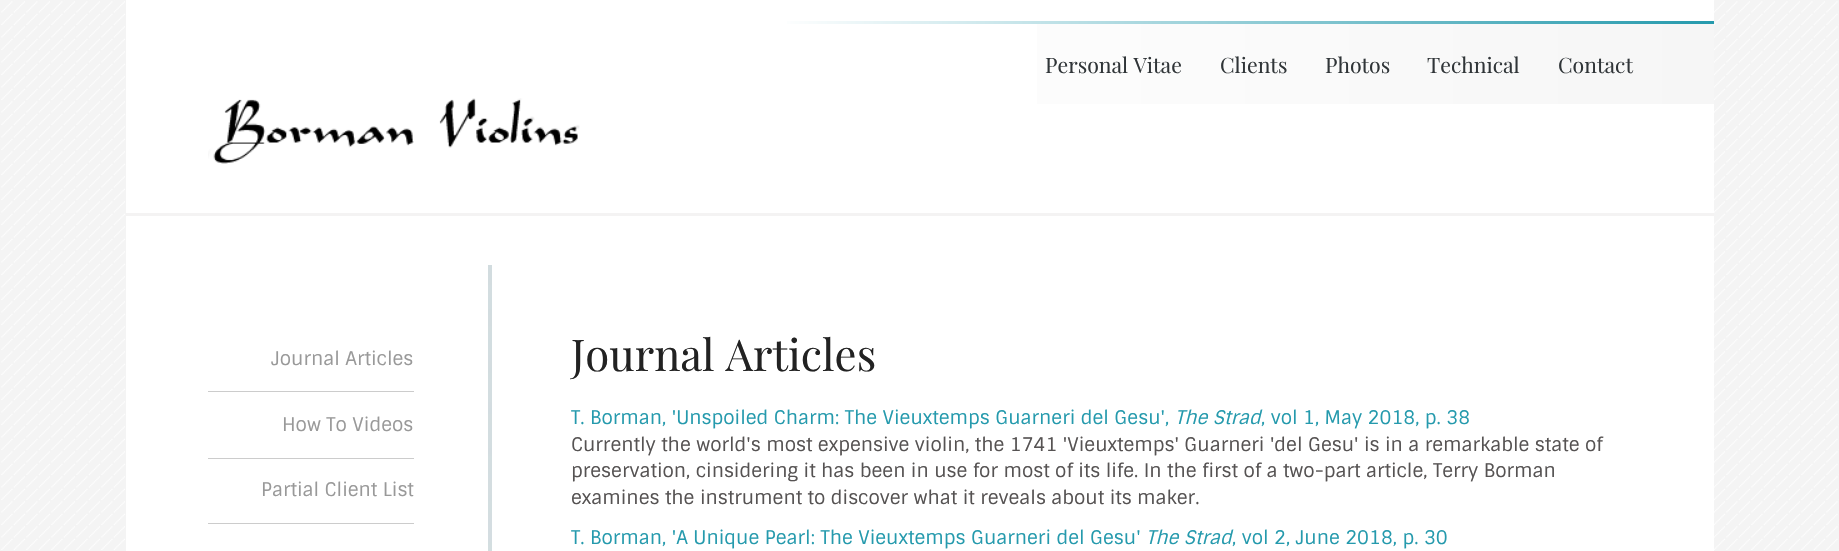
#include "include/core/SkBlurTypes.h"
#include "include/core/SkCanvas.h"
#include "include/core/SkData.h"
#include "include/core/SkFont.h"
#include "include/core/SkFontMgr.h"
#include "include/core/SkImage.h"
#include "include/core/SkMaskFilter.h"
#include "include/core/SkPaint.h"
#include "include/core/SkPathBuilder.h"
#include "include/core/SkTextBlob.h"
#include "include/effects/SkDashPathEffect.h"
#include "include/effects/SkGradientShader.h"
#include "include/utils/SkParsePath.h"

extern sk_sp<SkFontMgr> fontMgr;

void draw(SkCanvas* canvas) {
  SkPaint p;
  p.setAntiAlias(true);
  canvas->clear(SK_ColorWHITE);
  canvas->drawImageRect(SkImages::DeferredFromEncodedData(SkData::MakeFromFileName("images/1.png")), SkRect::MakeLTRB(0, 0, 1839, 551), SkSamplingOptions());
  p.setColor(SK_ColorWHITE);
  canvas->drawRect(SkRect::MakeLTRB(126, 0, 1714, 551), p);
  p.setColor(SkColorSetRGB(244, 243, 243));
  canvas->drawRect(SkRect::MakeLTRB(126, 213, 1714, 216), p);
  {
    const SkColor colors[] = {SK_ColorWHITE, SkColorSetRGB(246, 246, 246)};
    const float stops[] = {0, 1};
    const SkPoint ends[] = {{776, 63}, {1714, 62}};
    p.setShader(SkGradientShader::MakeLinear(ends, colors, stops, 2, SkTileMode::kClamp));
    p.setAlpha(255);
  }
  canvas->drawRect(SkRect::MakeLTRB(1037, 24, 1714, 104), p);
  {
    const SkColor colors[] = {SK_ColorWHITE, SkColorSetRGB(37, 154, 173)};
    const float stops[] = {0, 1};
    const SkPoint ends[] = {{776, 23}, {1714, 22}};
    p.setShader(SkGradientShader::MakeLinear(ends, colors, stops, 2, SkTileMode::kClamp));
    p.setAlpha(255);
  }
  canvas->drawRect(SkRect::MakeLTRB(787, 21, 1714, 24), p);
  canvas->drawImageRect(SkImages::DeferredFromEncodedData(SkData::MakeFromFileName("images/2.png")), SkRect::MakeLTRB(208, 98, 580, 164), SkSamplingOptions());
  p.setShader(nullptr);
  p.setColor(SkColorSetRGB(204, 204, 204));
  canvas->drawRect(SkRect::MakeLTRB(208, 391, 414, 392), p);
  canvas->drawRect(SkRect::MakeLTRB(208, 458, 414, 459), p);
  canvas->drawRect(SkRect::MakeLTRB(208, 523, 414, 524), p);
  {
    const SkColor colors[] = {SkColorSetRGB(210, 220, 223), SK_ColorWHITE};
    const float stops[] = {0, 1};
    const SkPoint ends[] = {{489, 265}, {489, 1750}};
    p.setShader(SkGradientShader::MakeLinear(ends, colors, stops, 2, SkTileMode::kClamp));
    p.setAlpha(255);
  }
  canvas->drawRect(SkRect::MakeLTRB(488, 274, 492, 551), p);
  {
    const SkColor colors[] = {SkColorSetRGB(210, 220, 223), SkColorSetARGB(0, 210, 220, 223)};
    const float stops[] = {0, 1};
    const SkPoint ends[] = {{489, 265}, {489, 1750}};
    p.setShader(SkGradientShader::MakeLinear(ends, colors, stops, 2, SkTileMode::kClamp));
    p.setAlpha(255);
  }
  canvas->drawRect(SkRect::MakeLTRB(488, 265, 492, 551), p);
  SkFont font1(fontMgr->matchFamilyStyle("Playfair Display", SkFontStyle::Normal()), 21.25f);
  font1.setSubpixel(true);
  p.setShader(nullptr);
  p.setColor(SkColorSetRGB(48, 53, 56));
  canvas->drawString("Personal Vitae", 1045, 73, font1, p);
  canvas->drawString("Clients", 1220, 73, font1, p);
  canvas->drawString("Photos", 1325, 73, font1, p);
  canvas->drawString("Technical", 1427, 73, font1, p);
  canvas->drawString("Contact", 1558, 73, font1, p);
  SkFont font2(fontMgr->matchFamilyStyle("Sintony", SkFontStyle::Normal()), 18.75f);
  font2.setSubpixel(true);
  p.setColor(SkColorSetRGB(153, 153, 153));
  canvas->drawString("Journal Articles", 271, 365, font2, p);
  canvas->drawString("How To Videos", 282, 431, font2, p);
  canvas->drawString("Partial Client List", 261, 496, font2, p);
  SkFont font3(fontMgr->matchFamilyStyle("Playfair Display", SkFontStyle::Normal()), 43.75f);
  font3.setSubpixel(true);
  p.setColor(SkColorSetRGB(34, 34, 34));
  canvas->drawString("Journal Articles", 571, 371, font3, p);
  p.setColor(SkColorSetRGB(37, 154, 173));
  canvas->drawString("T. Borman, 'Unspoiled Charm: The Vieuxtemps Guarneri del Gesu',", 571, 424, font2, p);
  SkFont font4(fontMgr->matchFamilyStyle("Sintony", SkFontStyle::Italic()), 18.75f);
  font4.setSubpixel(true);
  canvas->drawString("The Strad", 1175, 424, font4, p);
  canvas->drawString(", vol 1, May 2018, p. 38", 1261, 424, font2, p);
  p.setColor(SkColorSetRGB(86, 83, 83));
  canvas->drawString("Currently the world's most expensive violin, the 1741 'Vieuxtemps' Guarneri 'del Gesu' is in a remarkable state of", 571, 451, font2, p);
  canvas->drawString("preservation, cinsidering it has been in use for most of its life. In the first of a two-part article, Terry Borman", 571, 477, font2, p);
  canvas->drawString("examines the instrument to discover what it reveals about its maker.", 571, 504, font2, p);
  p.setColor(SkColorSetRGB(37, 154, 173));
  canvas->drawString("T. Borman, 'A Unique Pearl: The Vieuxtemps Guarneri del Gesu'", 571, 544, font2, p);
  canvas->drawString("The Strad", 1146, 544, font4, p);
  canvas->drawString(", vol 2, June 2018, p. 30", 1232, 544, font2, p);
}
